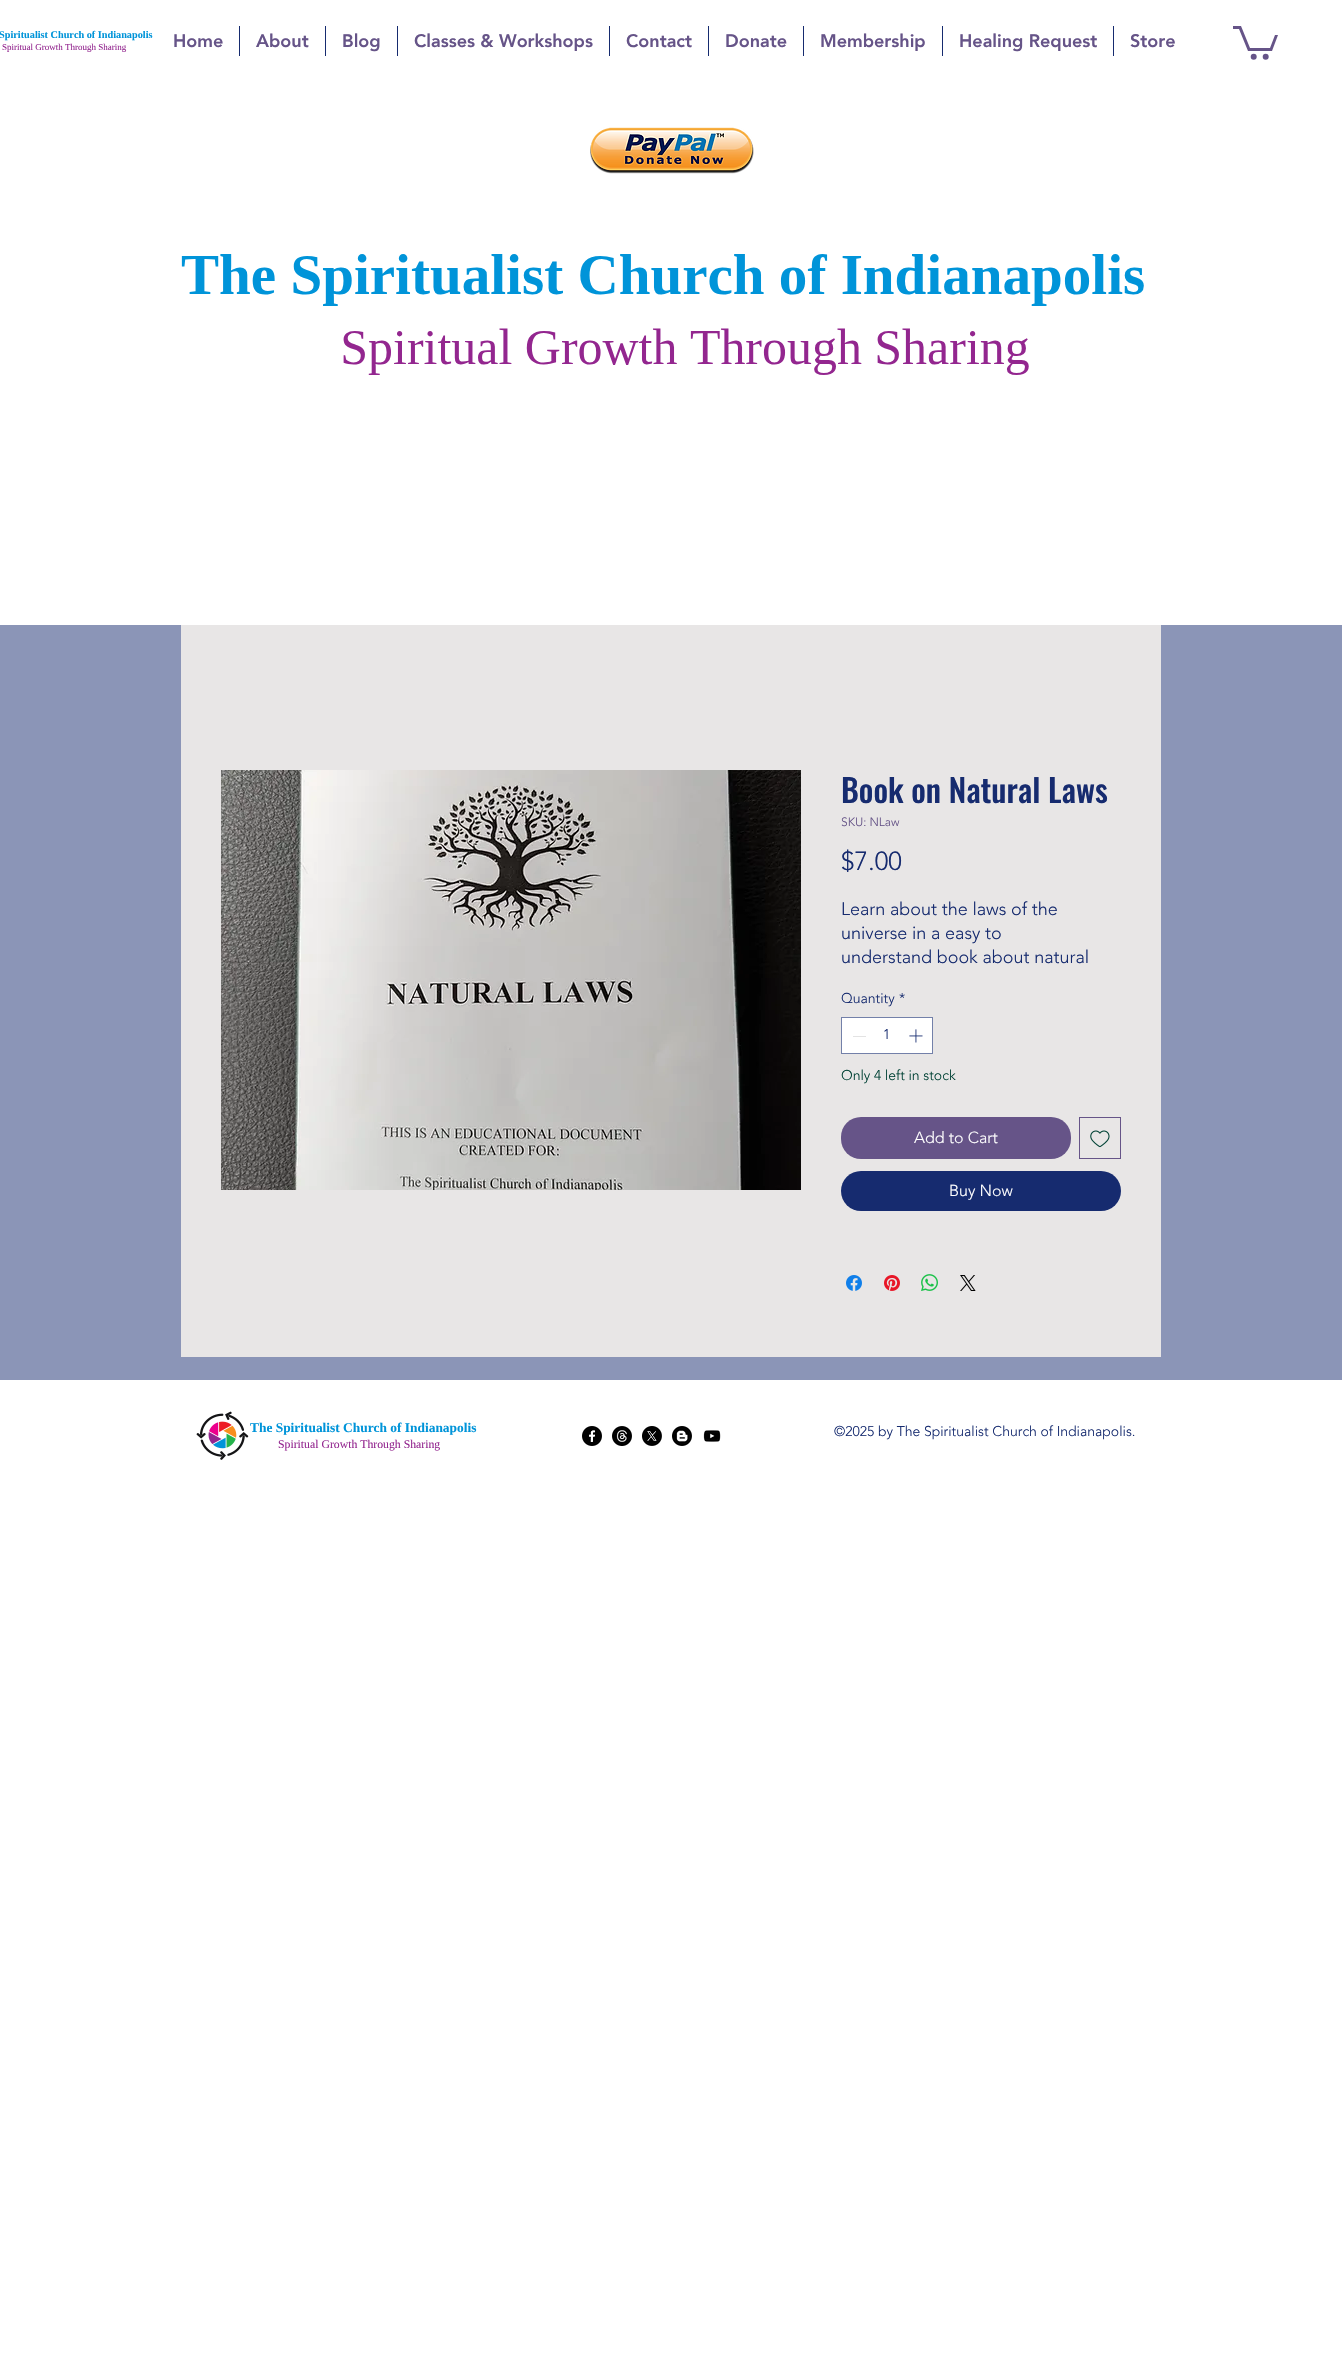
#include "include/core/SkBlurTypes.h"
#include "include/core/SkCanvas.h"
#include "include/core/SkData.h"
#include "include/core/SkFont.h"
#include "include/core/SkFontMgr.h"
#include "include/core/SkImage.h"
#include "include/core/SkMaskFilter.h"
#include "include/core/SkPaint.h"
#include "include/core/SkPathBuilder.h"
#include "include/core/SkTextBlob.h"
#include "include/effects/SkDashPathEffect.h"
#include "include/effects/SkGradientShader.h"
#include "include/utils/SkParsePath.h"

extern sk_sp<SkFontMgr> fontMgr;

void draw(SkCanvas* canvas) {
  SkPaint p;
  p.setAntiAlias(true);
  canvas->clear(SK_ColorWHITE);
  p.setColor(SkColorSetRGB(22, 43, 111));
  canvas->drawRect(SkRect::MakeLTRB(239, 26, 240, 56), p);
  canvas->drawRect(SkRect::MakeLTRB(325, 26, 326, 56), p);
  canvas->drawRect(SkRect::MakeLTRB(397, 26, 398, 56), p);
  canvas->drawRect(SkRect::MakeLTRB(609, 26, 610, 56), p);
  canvas->drawRect(SkRect::MakeLTRB(708, 26, 709, 56), p);
  canvas->drawRect(SkRect::MakeLTRB(803, 26, 804, 56), p);
  canvas->drawRect(SkRect::MakeLTRB(942, 26, 943, 56), p);
  canvas->drawRect(SkRect::MakeLTRB(1113, 26, 1114, 56), p);
  p.setColor(SkColorSetRGB(102, 84, 136));
  canvas->drawPath(SkPathBuilder().moveTo(1278, 35).lineTo(1272, 51).lineTo(1248, 51).lineTo(1239, 29).lineTo(1233, 29).lineTo(1233, 26).lineTo(1241, 26).lineTo(1250, 48).lineTo(1270, 48).lineTo(1275, 35).detach(), p);
  canvas->drawCircle(1265.7f, 56.8f, 3, p);
  canvas->drawCircle(1253.7f, 56.8f, 3, p);
  canvas->drawImageRect(SkImages::DeferredFromEncodedData(SkData::MakeFromFileName("images/1.png")), SkRect::MakeLTRB(590, 127, 754, 174), SkSamplingOptions());
  canvas->drawImageRect(SkImages::DeferredFromEncodedData(SkData::MakeFromFileName("images/2.png")), SkRect::MakeLTRB(181, 254, 1144, 375), SkSamplingOptions());
  p.setColor(SkColorSetRGB(139, 149, 183));
  canvas->drawRect(SkRect::MakeLTRB(0, 625, 1342, 1380), p);
  p.setColor(SkColorSetRGB(232, 230, 230));
  canvas->drawRect(SkRect::MakeLTRB(181, 625, 1161, 1357), p);
  canvas->drawImageRect(SkImages::DeferredFromEncodedData(SkData::MakeFromFileName("images/3.png")), SkRect::MakeLTRB(221, 770, 801, 1190), SkSamplingOptions());
  p.setColor(SK_ColorWHITE);
  canvas->drawRect(SkRect::MakeLTRB(841.5f, 1017.5f, 932.5f, 1053.5f), p);
  p.setStyle(SkPaint::kStroke_Style);
  p.setStrokeWidth(1);
  p.setColor(SkColorSetRGB(115, 128, 169));
  canvas->drawRect(SkRect::MakeLTRB(841.5f, 1017.5f, 932.5f, 1053.5f), p);
  p.setStyle(SkPaint::kFill_Style);
  p.setColor(SkColorSetRGB(227, 227, 227));
  canvas->drawRect(SkRect::MakeLTRB(853, 1036, 866, 1037), p);
  canvas->drawImageRect(SkImages::DeferredFromEncodedData(SkData::MakeFromFileName("images/4.png")), SkRect::MakeLTRB(909, 1029, 923, 1043), SkSamplingOptions());
  p.setColor(SkColorSetRGB(102, 84, 136));
  canvas->drawRoundRect(SkRect::MakeLTRB(841, 1117, 1071, 1159), 20, 20, p);
  p.setStyle(SkPaint::kStroke_Style);
  canvas->drawRect(SkRect::MakeLTRB(1079.5f, 1117.5f, 1120.5f, 1158.5f), p);
  canvas->drawImageRect(SkImages::DeferredFromEncodedData(SkData::MakeFromFileName("images/5.png")), SkRect::MakeLTRB(1090, 1130, 1110, 1148), SkSamplingOptions());
  p.setStyle(SkPaint::kFill_Style);
  p.setColor(SkColorSetRGB(22, 43, 111));
  canvas->drawRoundRect(SkRect::MakeLTRB(841, 1171, 1121, 1211), 20, 20, p);
  canvas->drawImageRect(SkImages::DeferredFromEncodedData(SkData::MakeFromFileName("images/6.png")), SkRect::MakeLTRB(846, 1275, 862, 1291), SkSamplingOptions());
  canvas->drawImageRect(SkImages::DeferredFromEncodedData(SkData::MakeFromFileName("images/7.png")), SkRect::MakeLTRB(884, 1275, 900, 1291), SkSamplingOptions());
  canvas->drawImageRect(SkImages::DeferredFromEncodedData(SkData::MakeFromFileName("images/8.png")), SkRect::MakeLTRB(921, 1274, 938, 1291), SkSamplingOptions());
  canvas->drawImageRect(SkImages::DeferredFromEncodedData(SkData::MakeFromFileName("images/9.png")), SkRect::MakeLTRB(960, 1275, 976, 1291), SkSamplingOptions());
  canvas->drawImageRect(SkImages::DeferredFromEncodedData(SkData::MakeFromFileName("images/10.png")), SkRect::MakeLTRB(196, 1411, 249, 1460), SkSamplingOptions());
  canvas->drawImageRect(SkImages::DeferredFromEncodedData(SkData::MakeFromFileName("images/11.png")), SkRect::MakeLTRB(582, 1426, 602, 1446), SkSamplingOptions());
  canvas->drawImageRect(SkImages::DeferredFromEncodedData(SkData::MakeFromFileName("images/12.png")), SkRect::MakeLTRB(612, 1426, 632, 1446), SkSamplingOptions());
  canvas->drawImageRect(SkImages::DeferredFromEncodedData(SkData::MakeFromFileName("images/13.png")), SkRect::MakeLTRB(642, 1426, 662, 1446), SkSamplingOptions());
  canvas->drawImageRect(SkImages::DeferredFromEncodedData(SkData::MakeFromFileName("images/14.png")), SkRect::MakeLTRB(672, 1426, 692, 1446), SkSamplingOptions());
  canvas->drawImageRect(SkImages::DeferredFromEncodedData(SkData::MakeFromFileName("images/15.png")), SkRect::MakeLTRB(703, 1430, 721, 1442), SkSamplingOptions());
  SkFont font1(fontMgr->matchFamilyStyle("Liberation Serif", SkFontStyle::Bold()), 10.25f);
  font1.setSubpixel(true);
  p.setColor(SkColorSetRGB(0, 148, 217));
  canvas->drawString("Spiritualist Church of Indianapolis", -1, 38, font1, p);
  SkFont font2(fontMgr->matchFamilyStyle("Liberation Serif", SkFontStyle::Normal()), 9);
  font2.setSubpixel(true);
  p.setColor(SkColorSetRGB(147, 38, 143));
  canvas->drawString("Spiritual Growth Through Sharing", 2, 50, font2, p);
  SkFont font3(fontMgr->matchFamilyStyle("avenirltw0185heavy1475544", SkFontStyle(900, SkFontStyle::kNormal_Width, SkFontStyle::kUpright_Slant)), 18);
  font3.setSubpixel(true);
  p.setColor(SkColorSetRGB(102, 84, 136));
  canvas->drawString("Home", 173, 47, font3, p);
  canvas->drawString("About", 256, 47, font3, p);
  canvas->drawString("Blog", 342, 47, font3, p);
  canvas->drawString("Classes & Workshops", 414, 47, font3, p);
  canvas->drawString("Contact", 626, 47, font3, p);
  canvas->drawString("Donate", 725, 47, font3, p);
  canvas->drawString("Membership", 820, 47, font3, p);
  canvas->drawString("Healing Request", 959, 47, font3, p);
  canvas->drawString("Store", 1130, 47, font3, p);
  SkFont font4(fontMgr->matchFamilyStyle("Oswald", SkFontStyle(500, SkFontStyle::kNormal_Width, SkFontStyle::kUpright_Slant)), 32);
  font4.setSubpixel(true);
  p.setColor(SkColorSetRGB(22, 43, 111));
  canvas->drawString("Book on Natural Laws", 841, 803, font4, p);
  SkFont font5(fontMgr->matchFamilyStyle("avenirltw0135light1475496", SkFontStyle(300, SkFontStyle::kNormal_Width, SkFontStyle::kUpright_Slant)), 12);
  font5.setSubpixel(true);
  p.setColor(SkColorSetRGB(102, 84, 136));
  canvas->drawString("SKU: NLaw", 841, 826, font5, p);
  SkFont font6(fontMgr->matchFamilyStyle("avenirltw0135light1475496", SkFontStyle(300, SkFontStyle::kNormal_Width, SkFontStyle::kUpright_Slant)), 26);
  font6.setSubpixel(true);
  p.setColor(SkColorSetRGB(22, 43, 111));
  canvas->drawString("$7.00", 841, 870, font6, p);
  SkFont font7(fontMgr->matchFamilyStyle("avenirltw0135light1475496", SkFontStyle(300, SkFontStyle::kNormal_Width, SkFontStyle::kUpright_Slant)), 18);
  font7.setSubpixel(true);
  canvas->drawString("Learn about the laws of the", 841, 915, font7, p);
  canvas->drawString("universe in a easy to", 841, 939, font7, p);
  canvas->drawString("understand book about natural", 841, 963, font7, p);
  SkFont font8(fontMgr->matchFamilyStyle("avenirltw0135light1475496", SkFontStyle(300, SkFontStyle::kNormal_Width, SkFontStyle::kUpright_Slant)), 14);
  font8.setSubpixel(true);
  canvas->drawString("Quantity", 841, 1003, font8, p);
  canvas->drawString("*", 899, 1003, font8, p);
  canvas->drawString("1", 883, 1039, font8, p);
  p.setColor(SkColorSetRGB(1, 66, 53));
  canvas->drawString("Only 4 left in stock", 841, 1080, font8, p);
  SkFont font9(fontMgr->matchFamilyStyle("avenirltw0135light1475496", SkFontStyle(300, SkFontStyle::kNormal_Width, SkFontStyle::kUpright_Slant)), 16);
  font9.setSubpixel(true);
  p.setColor(SK_ColorWHITE);
  canvas->drawString("Add to Cart", 914, 1143, font9, p);
  canvas->drawString("Buy Now", 949, 1196, font9, p);
  SkFont font10(fontMgr->matchFamilyStyle("Liberation Serif", SkFontStyle::Bold()), 13.4f);
  font10.setSubpixel(true);
  p.setColor(SkColorSetRGB(0, 148, 217));
  canvas->drawString("The Spiritualist Church of Indianapolis", 250, 1432, font10, p);
  SkFont font11(fontMgr->matchFamilyStyle("Liberation Serif", SkFontStyle::Normal()), 11.75f);
  font11.setSubpixel(true);
  p.setColor(SkColorSetRGB(147, 38, 143));
  canvas->drawString("Spiritual Growth Through Sharing", 278, 1448, font11, p);
  p.setColor(SkColorSetRGB(22, 43, 111));
  canvas->drawString("©2025 by The Spiritualist Church of Indianapolis.", 834, 1436, font8, p);
}
